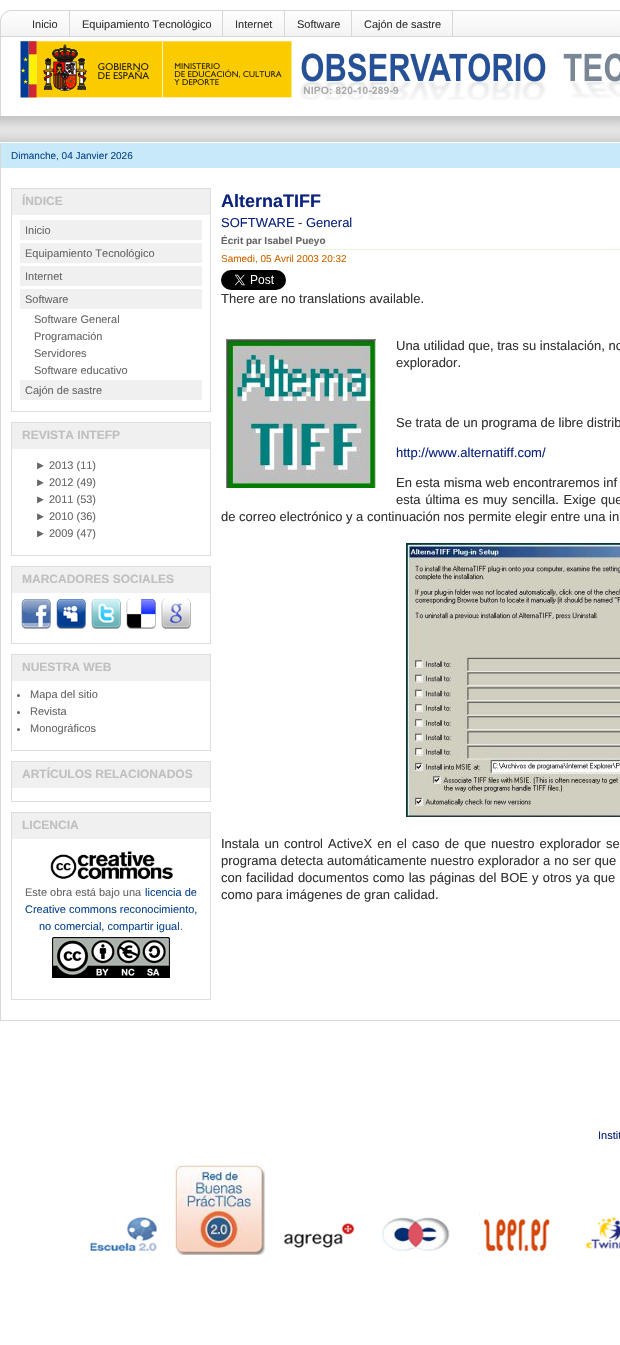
#include "include/core/SkBlurTypes.h"
#include "include/core/SkCanvas.h"
#include "include/core/SkData.h"
#include "include/core/SkFont.h"
#include "include/core/SkFontMgr.h"
#include "include/core/SkImage.h"
#include "include/core/SkMaskFilter.h"
#include "include/core/SkPaint.h"
#include "include/core/SkPathBuilder.h"
#include "include/core/SkTextBlob.h"
#include "include/effects/SkDashPathEffect.h"
#include "include/effects/SkGradientShader.h"
#include "include/utils/SkParsePath.h"

extern sk_sp<SkFontMgr> fontMgr;

void draw(SkCanvas* canvas) {
  SkPaint p;
  p.setAntiAlias(true);
  auto spacedText = [&](const char* s, float x, float y, const SkFont& font, const SkPaint& ink, float letter, float word) {
    std::vector<SkGlyphID> glyphs(font.countText(s, strlen(s), SkTextEncoding::kUTF8));
    std::vector<float> xs(glyphs.size());
    font.textToGlyphs(s, strlen(s), SkTextEncoding::kUTF8, glyphs);
    font.getXPos(glyphs, xs, x);
    float extra = 0;
    for (size_t i = 0; i < glyphs.size(); i++) {
      xs[i] += extra;
      extra += letter + word * (glyphs[i] == font.unicharToGlyph(' '));
    }
    canvas->drawTextBlob(SkTextBlob::MakeFromPosHGlyphs(glyphs, xs, y, font), 0, 0, ink);
  };
  canvas->clear(SK_ColorWHITE);
  canvas->drawImageRect(SkImages::DeferredFromEncodedData(SkData::MakeFromFileName("images/1.png")), SkRect::MakeLTRB(10, 10, 620, 37), SkSamplingOptions());
  canvas->drawImageRect(SkImages::DeferredFromEncodedData(SkData::MakeFromFileName("images/2.png")), SkRect::MakeLTRB(0, 10, 10, 116), SkSamplingOptions());
  p.setColor(SkColorSetRGB(216, 215, 215));
  canvas->drawRect(SkRect::MakeLTRB(69, 11, 70, 36), p);
  canvas->drawRect(SkRect::MakeLTRB(222, 11, 223, 36), p);
  canvas->drawRect(SkRect::MakeLTRB(284, 11, 285, 36), p);
  canvas->drawRect(SkRect::MakeLTRB(351, 11, 352, 36), p);
  canvas->drawRect(SkRect::MakeLTRB(452, 11, 453, 36), p);
  canvas->drawImageRect(SkImages::DeferredFromEncodedData(SkData::MakeFromFileName("images/3.png")), SkRect::MakeLTRB(20, 41, 620, 100), SkSamplingOptions());
  canvas->drawImageRect(SkImages::DeferredFromEncodedData(SkData::MakeFromFileName("images/4.png")), SkRect::MakeLTRB(0, 116, 620, 142), SkSamplingOptions());
  p.setColor(SkColorSetRGB(200, 233, 248));
  canvas->drawRect(SkRect::MakeLTRB(1, 143, 620, 168), p);
  p.setColor(SkColorSetRGB(216, 215, 215));
  canvas->drawRect(SkRect::MakeLTRB(0, 143, 1, 168), p);
  canvas->drawRect(SkRect::MakeLTRB(0, 1020, 620, 1021), p);
  canvas->drawRect(SkRect::MakeLTRB(0, 168, 1, 1021), p);
  p.setStyle(SkPaint::kStroke_Style);
  p.setStrokeWidth(1);
  p.setColor(SkColorSetRGB(220, 221, 222));
  canvas->drawRect(SkRect::MakeLTRB(11.5f, 188.5f, 210.5f, 411.5f), p);
  p.setStyle(SkPaint::kFill_Style);
  p.setColor(SkColorSetRGB(240, 240, 240));
  canvas->drawRect(SkRect::MakeLTRB(12, 189, 210, 215), p);
  canvas->drawRect(SkRect::MakeLTRB(20, 220, 202, 240), p);
  canvas->drawRect(SkRect::MakeLTRB(20, 243, 202, 263), p);
  canvas->drawRect(SkRect::MakeLTRB(20, 266, 202, 286), p);
  canvas->drawRect(SkRect::MakeLTRB(20, 289, 202, 309), p);
  canvas->drawRect(SkRect::MakeLTRB(20, 380, 202, 400), p);
  p.setStyle(SkPaint::kStroke_Style);
  p.setColor(SkColorSetRGB(220, 221, 222));
  canvas->drawRect(SkRect::MakeLTRB(11.5f, 422.5f, 210.5f, 555.5f), p);
  p.setStyle(SkPaint::kFill_Style);
  p.setColor(SkColorSetRGB(240, 240, 240));
  canvas->drawRect(SkRect::MakeLTRB(12, 423, 210, 449), p);
  p.setStyle(SkPaint::kStroke_Style);
  p.setColor(SkColorSetRGB(220, 221, 222));
  canvas->drawRect(SkRect::MakeLTRB(11.5f, 566.5f, 210.5f, 643.5f), p);
  p.setStyle(SkPaint::kFill_Style);
  p.setColor(SkColorSetRGB(240, 240, 240));
  canvas->drawRect(SkRect::MakeLTRB(12, 567, 210, 593), p);
  canvas->drawImageRect(SkImages::DeferredFromEncodedData(SkData::MakeFromFileName("images/5.png")), SkRect::MakeLTRB(21, 599, 51, 629), SkSamplingOptions());
  canvas->drawImageRect(SkImages::DeferredFromEncodedData(SkData::MakeFromFileName("images/6.png")), SkRect::MakeLTRB(56, 599, 86, 629), SkSamplingOptions());
  canvas->drawImageRect(SkImages::DeferredFromEncodedData(SkData::MakeFromFileName("images/7.png")), SkRect::MakeLTRB(91, 599, 121, 629), SkSamplingOptions());
  canvas->drawImageRect(SkImages::DeferredFromEncodedData(SkData::MakeFromFileName("images/8.png")), SkRect::MakeLTRB(126, 599, 156, 629), SkSamplingOptions());
  canvas->drawImageRect(SkImages::DeferredFromEncodedData(SkData::MakeFromFileName("images/9.png")), SkRect::MakeLTRB(161, 599, 191, 629), SkSamplingOptions());
  p.setStyle(SkPaint::kStroke_Style);
  p.setColor(SkColorSetRGB(220, 221, 222));
  canvas->drawRect(SkRect::MakeLTRB(11.5f, 654.5f, 210.5f, 750.5f), p);
  p.setStyle(SkPaint::kFill_Style);
  p.setColor(SkColorSetRGB(240, 240, 240));
  canvas->drawRect(SkRect::MakeLTRB(12, 655, 210, 681), p);
  p.setColor(SkColorSetRGB(102, 102, 102));
  canvas->drawCircle(18.5f, 695.5f, 1.5f, p);
  canvas->drawCircle(18.5f, 712.5f, 1.5f, p);
  canvas->drawCircle(18.5f, 729.5f, 1.5f, p);
  p.setStyle(SkPaint::kStroke_Style);
  p.setColor(SkColorSetRGB(220, 221, 222));
  canvas->drawRect(SkRect::MakeLTRB(11.5f, 761.5f, 210.5f, 801.5f), p);
  p.setStyle(SkPaint::kFill_Style);
  p.setColor(SkColorSetRGB(240, 240, 240));
  canvas->drawRect(SkRect::MakeLTRB(12, 762, 210, 788), p);
  p.setStyle(SkPaint::kStroke_Style);
  p.setColor(SkColorSetRGB(220, 221, 222));
  canvas->drawRect(SkRect::MakeLTRB(11.5f, 812.5f, 210.5f, 999.5f), p);
  p.setStyle(SkPaint::kFill_Style);
  p.setColor(SkColorSetRGB(240, 240, 240));
  canvas->drawRect(SkRect::MakeLTRB(12, 813, 210, 839), p);
  canvas->drawImageRect(SkImages::DeferredFromEncodedData(SkData::MakeFromFileName("images/10.png")), SkRect::MakeLTRB(50, 851, 173, 880), SkSamplingOptions());
  canvas->drawImageRect(SkImages::DeferredFromEncodedData(SkData::MakeFromFileName("images/11.png")), SkRect::MakeLTRB(52, 937, 170, 978), SkSamplingOptions());
  p.setColor(SkColorSetRGB(231, 246, 227));
  canvas->drawRect(SkRect::MakeLTRB(221, 249, 620, 250), p);
  canvas->drawImageRect(SkImages::DeferredFromEncodedData(SkData::MakeFromFileName("images/12.png")), SkRect::MakeLTRB(221, 270, 286, 290), SkSamplingOptions());
  canvas->drawImageRect(SkImages::DeferredFromEncodedData(SkData::MakeFromFileName("images/13.png")), SkRect::MakeLTRB(226, 339, 376, 488), SkSamplingOptions());
  canvas->drawImageRect(SkImages::DeferredFromEncodedData(SkData::MakeFromFileName("images/14.png")), SkRect::MakeLTRB(406, 543, 620, 817), SkSamplingOptions());
  canvas->drawImageRect(SkImages::DeferredFromEncodedData(SkData::MakeFromFileName("images/15.png")), SkRect::MakeLTRB(90, 1217, 157, 1251), SkSamplingOptions());
  canvas->drawImageRect(SkImages::DeferredFromEncodedData(SkData::MakeFromFileName("images/16.png")), SkRect::MakeLTRB(175, 1165, 265, 1255), SkSamplingOptions());
  canvas->drawImageRect(SkImages::DeferredFromEncodedData(SkData::MakeFromFileName("images/17.png")), SkRect::MakeLTRB(283, 1223, 355, 1248), SkSamplingOptions());
  canvas->drawImageRect(SkImages::DeferredFromEncodedData(SkData::MakeFromFileName("images/18.png")), SkRect::MakeLTRB(382, 1217, 450, 1251), SkSamplingOptions());
  canvas->drawImageRect(SkImages::DeferredFromEncodedData(SkData::MakeFromFileName("images/19.png")), SkRect::MakeLTRB(479, 1213, 553, 1255), SkSamplingOptions());
  canvas->drawImageRect(SkImages::DeferredFromEncodedData(SkData::MakeFromFileName("images/20.png")), SkRect::MakeLTRB(585, 1217, 620, 1249), SkSamplingOptions());
  SkFont font1(fontMgr->matchFamilyStyle("Liberation Sans", SkFontStyle::Normal()), 11);
  font1.setSubpixel(true);
  p.setColor(SkColorSetRGB(51, 51, 51));
  canvas->drawString("Inicio", 32, 28, font1, p);
  canvas->drawString("Equipamiento Tecnológico", 82, 28, font1, p);
  canvas->drawString("Internet", 235, 28, font1, p);
  canvas->drawString("Software", 297, 28, font1, p);
  canvas->drawString("Cajón de sastre", 364, 28, font1, p);
  SkFont font2(fontMgr->matchFamilyStyle("Liberation Sans", SkFontStyle::Normal()), 10);
  font2.setSubpixel(true);
  p.setColor(SkColorSetRGB(12, 71, 144));
  canvas->drawString("Dimanche, 04 Janvier 2026", 11, 159, font2, p);
  SkFont font3(fontMgr->matchFamilyStyle("Liberation Sans", SkFontStyle::Bold()), 12);
  font3.setSubpixel(true);
  p.setColor(SkColorSetRGB(192, 192, 192));
  canvas->drawString("ÍNDICE", 22, 205, font3, p);
  p.setColor(SkColorSetRGB(102, 102, 102));
  canvas->drawString("Inicio", 25, 234, font1, p);
  canvas->drawString("Equipamiento Tecnológico", 25, 257, font1, p);
  canvas->drawString("Internet", 25, 280, font1, p);
  canvas->drawString("Software", 25, 303, font1, p);
  canvas->drawString("Software General", 34, 323, font1, p);
  canvas->drawString("Programación", 34, 340, font1, p);
  canvas->drawString("Servidores", 34, 357, font1, p);
  canvas->drawString("Software educativo", 34, 374, font1, p);
  canvas->drawString("Cajón de sastre", 25, 394, font1, p);
  p.setColor(SkColorSetRGB(192, 192, 192));
  canvas->drawString("REVISTA INTEFP", 22, 439, font3, p);
  p.setColor(SkColorSetRGB(102, 102, 102));
  canvas->drawString("► 2013 (11)", 35, 469, font1, p);
  canvas->drawString("► 2012 (49)", 35, 486, font1, p);
  canvas->drawString("► 2011 (53)", 35, 503, font1, p);
  canvas->drawString("► 2010 (36)", 35, 520, font1, p);
  canvas->drawString("► 2009 (47)", 35, 537, font1, p);
  p.setColor(SkColorSetRGB(192, 192, 192));
  canvas->drawString("MARCADORES SOCIALES", 22, 583, font3, p);
  canvas->drawString("NUESTRA WEB", 22, 671, font3, p);
  p.setColor(SkColorSetRGB(102, 102, 102));
  canvas->drawString("Mapa del sitio", 30, 698, font1, p);
  canvas->drawString("Revista", 30, 715, font1, p);
  canvas->drawString("Monográficos", 30, 732, font1, p);
  p.setColor(SkColorSetRGB(192, 192, 192));
  canvas->drawString("ARTÍCULOS RELACIONADOS", 22, 778, font3, p);
  canvas->drawString("LICENCIA", 22, 829, font3, p);
  p.setColor(SkColorSetRGB(102, 102, 102));
  canvas->drawString("Este obra está bajo una", 25, 896, font1, p);
  p.setColor(SkColorSetRGB(12, 71, 144));
  canvas->drawString("licencia de", 145, 896, font1, p);
  canvas->drawString("Creative commons reconocimiento,", 25, 913, font1, p);
  canvas->drawString("no comercial, compartir igual", 39, 930, font1, p);
  p.setColor(SkColorSetRGB(102, 102, 102));
  canvas->drawString(".", 180, 930, font1, p);
  SkFont font4(fontMgr->matchFamilyStyle("Liberation Sans", SkFontStyle::Bold()), 18);
  font4.setSubpixel(true);
  p.setColor(SkColorSetRGB(11, 35, 126));
  canvas->drawString("AlternaTIFF", 221, 207, font4, p);
  SkFont font5(fontMgr->matchFamilyStyle("Liberation Sans", SkFontStyle::Normal()), 13);
  font5.setSubpixel(true);
  canvas->drawString("SOFTWARE", 221, 227, font5, p);
  p.setColor(SkColorSetRGB(51, 51, 51));
  canvas->drawString("-", 298, 227, font5, p);
  p.setColor(SkColorSetRGB(11, 35, 126));
  canvas->drawString("General", 306, 227, font5, p);
  SkFont font6(fontMgr->matchFamilyStyle("Liberation Sans", SkFontStyle::Bold()), 10);
  font6.setSubpixel(true);
  p.setColor(SkColorSetRGB(102, 102, 102));
  canvas->drawString("Écrit par Isabel Pueyo", 221, 244, font6, p);
  p.setColor(SkColorSetRGB(204, 102, 0));
  canvas->drawString("Samedi, 05 Avril 2003 20:32", 221, 262, font2, p);
  p.setColor(SkColorSetRGB(51, 51, 51));
  canvas->drawString("There are no translations available.", 221, 303, font5, p);
  canvas->drawString("Una utilidad que, tras su instalación, no", 396, 350, font5, p);
  canvas->drawString("explorador.", 396, 367, font5, p);
  canvas->drawString("Se trata de un programa de libre distrib", 396, 427, font5, p);
  p.setColor(SkColorSetRGB(11, 35, 126));
  canvas->drawString("http://www.alternatiff.com/", 396, 457, font5, p);
  p.setColor(SkColorSetRGB(51, 51, 51));
  canvas->drawString("En esta misma web encontraremos inf", 396, 487, font5, p);
  spacedText("esta última es muy sencilla. Exige que", 396, 504, font5, p, 0, 1);
  canvas->drawString("de correo electrónico y a continuación nos permite elegir entre una in", 221, 521, font5, p);
  spacedText("Instala un control ActiveX en el caso de que nuestro explorador se", 221, 848, font5, p, 0, 1.5f);
  spacedText("programa detecta automáticamente nuestro explorador a no ser que", 221, 865, font5, p, 0, 0.25f);
  spacedText("con facilidad documentos como las páginas del BOE y otros ya que", 221, 882, font5, p, 0, 0.5f);
  canvas->drawString("como para imágenes de gran calidad.", 221, 899, font5, p);
  p.setColor(SkColorSetRGB(11, 35, 126));
  canvas->drawString("Instit", 598, 1139, font1, p);
}
